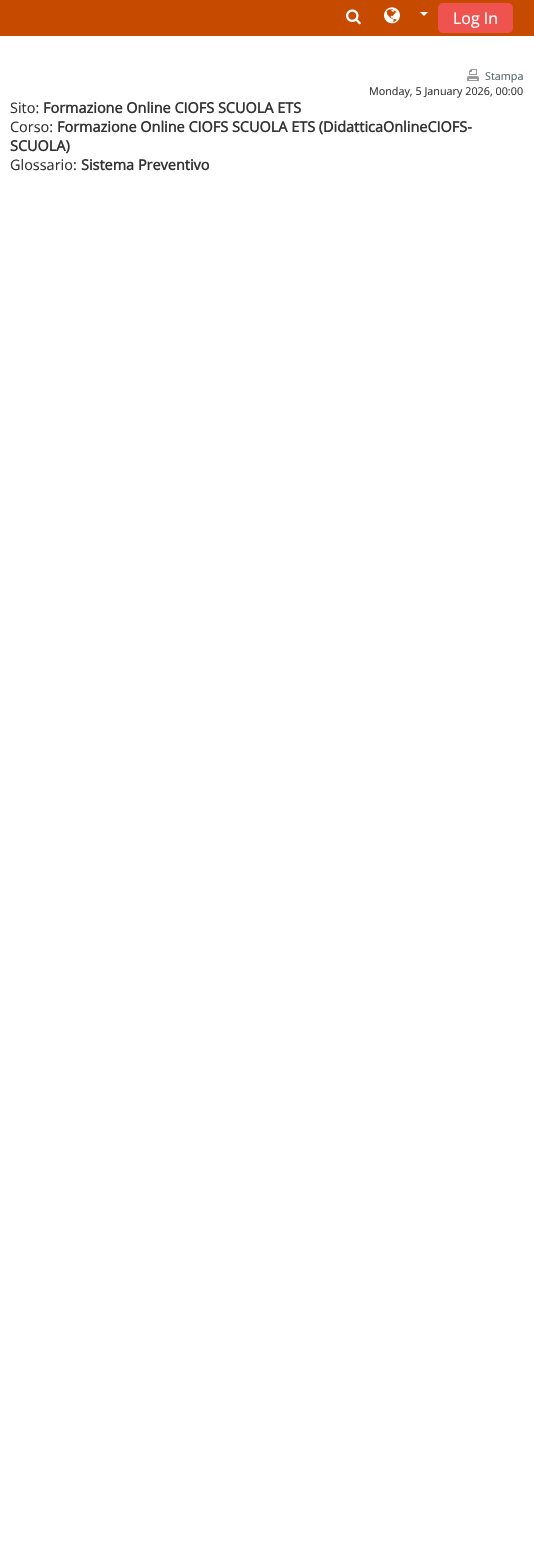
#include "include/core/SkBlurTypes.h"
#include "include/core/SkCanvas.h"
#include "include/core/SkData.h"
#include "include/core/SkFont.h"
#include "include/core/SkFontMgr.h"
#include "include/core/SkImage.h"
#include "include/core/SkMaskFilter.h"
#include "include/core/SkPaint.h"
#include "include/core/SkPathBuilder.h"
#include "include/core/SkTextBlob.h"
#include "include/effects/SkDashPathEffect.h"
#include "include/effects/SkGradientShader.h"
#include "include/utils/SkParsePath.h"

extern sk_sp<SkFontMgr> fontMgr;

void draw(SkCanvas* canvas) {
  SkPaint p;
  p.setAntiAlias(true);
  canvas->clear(SK_ColorWHITE);
  p.setColor(SkColorSetRGB(198, 74, 0));
  canvas->drawRect(SkRect::MakeLTRB(0, 0, 534, 36), p);
  canvas->drawImageRect(SkImages::DeferredFromEncodedData(SkData::MakeFromFileName("images/1.png")), SkRect::MakeLTRB(346, 9, 361, 25), SkSamplingOptions());
  canvas->drawImageRect(SkImages::DeferredFromEncodedData(SkData::MakeFromFileName("images/2.png")), SkRect::MakeLTRB(384, 7, 400, 24), SkSamplingOptions());
  p.setColor(SK_ColorWHITE);
  canvas->drawPath(SkPathBuilder().moveTo(420, 12).lineTo(428, 12).lineTo(424, 16).close().detach(), p);
  p.setColor(SkColorSetRGB(239, 83, 80));
  canvas->drawRoundRect(SkRect::MakeLTRB(438, 3, 513, 33), 5, 5, p);
  canvas->drawImageRect(SkImages::DeferredFromEncodedData(SkData::MakeFromFileName("images/3.png")), SkRect::MakeLTRB(467, 69, 479, 81), SkSamplingOptions());
  SkFont font1(fontMgr->matchFamilyStyle("Open Sans", SkFontStyle::Normal()), 16);
  font1.setSubpixel(true);
  p.setColor(SK_ColorWHITE);
  canvas->drawString("Log In", 453, 24, font1, p);
  SkFont font2(fontMgr->matchFamilyStyle("Open Sans", SkFontStyle::Normal()), 10.8f);
  font2.setSubpixel(true);
  p.setColor(SkColorSetRGB(81, 102, 108));
  canvas->drawString("Stampa", 485, 80, font2, p);
  p.setColor(SkColorSetRGB(51, 51, 51));
  canvas->drawString("Monday, 5 January 2026, 00:00", 369, 95, font2, p);
  SkFont font3(fontMgr->matchFamilyStyle("Open Sans", SkFontStyle::Normal()), 14.45f);
  font3.setSubpixel(true);
  canvas->drawString("Sito:", 10, 113, font3, p);
  SkFont font4(fontMgr->matchFamilyStyle("Open Sans", SkFontStyle::Bold()), 14.45f);
  font4.setSubpixel(true);
  canvas->drawString("Formazione Online CIOFS SCUOLA ETS", 43, 113, font4, p);
  canvas->drawString("Corso:", 10, 132, font3, p);
  canvas->drawString("Formazione Online CIOFS SCUOLA ETS (DidatticaOnlineCIOFS-", 57, 132, font4, p);
  canvas->drawString("SCUOLA)", 10, 151, font4, p);
  canvas->drawString("Glossario:", 10, 170, font3, p);
  canvas->drawString("Sistema Preventivo", 81, 170, font4, p);
}
